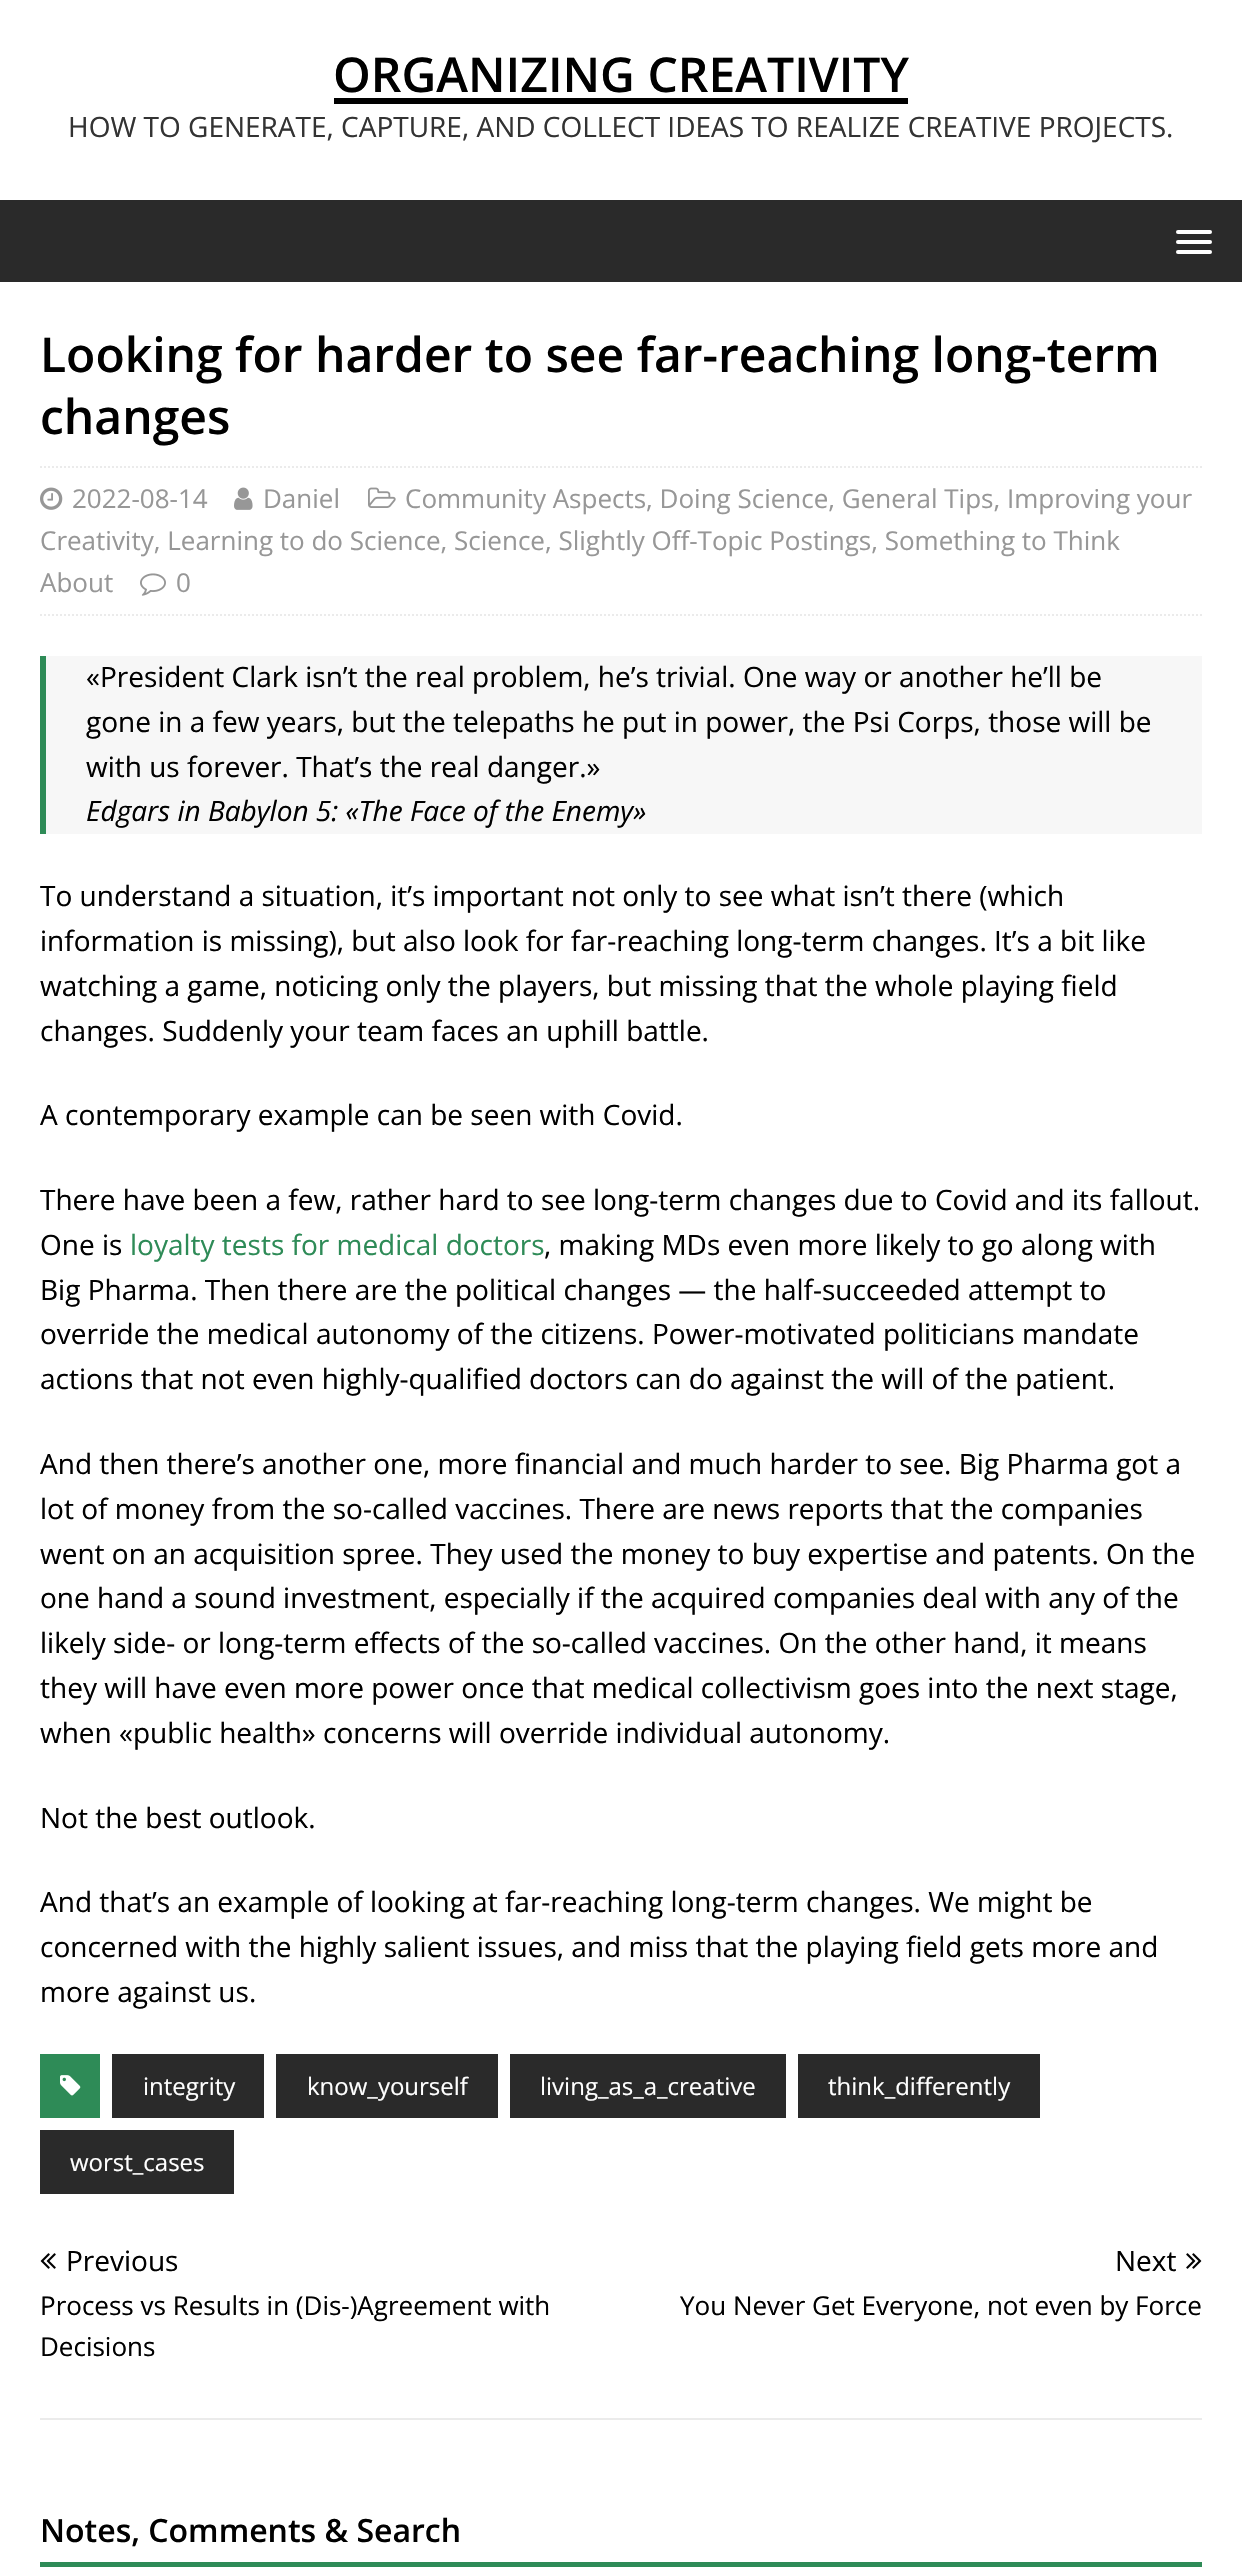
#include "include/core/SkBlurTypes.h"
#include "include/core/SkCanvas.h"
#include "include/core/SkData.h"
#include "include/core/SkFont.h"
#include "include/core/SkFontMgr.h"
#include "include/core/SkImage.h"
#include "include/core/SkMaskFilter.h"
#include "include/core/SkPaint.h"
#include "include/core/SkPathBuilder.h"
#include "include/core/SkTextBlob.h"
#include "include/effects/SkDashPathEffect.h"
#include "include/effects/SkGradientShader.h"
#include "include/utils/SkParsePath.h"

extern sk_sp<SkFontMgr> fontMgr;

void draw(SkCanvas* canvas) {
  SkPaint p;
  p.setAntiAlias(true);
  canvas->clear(SK_ColorWHITE);
  p.setColor(SK_ColorBLACK);
  canvas->drawRect(SkRect::MakeLTRB(334, 98, 908, 104), p);
  p.setColor(SkColorSetRGB(42, 42, 42));
  canvas->drawRect(SkRect::MakeLTRB(0, 200, 1242, 282), p);
  p.setColor(SK_ColorWHITE);
  canvas->drawRoundRect(SkRect::MakeLTRB(1176, 230, 1212, 234), 2, 2, p);
  canvas->drawRoundRect(SkRect::MakeLTRB(1176, 240, 1212, 244), 2, 2, p);
  canvas->drawRoundRect(SkRect::MakeLTRB(1176, 250, 1212, 254), 2, 2, p);
  p.setStyle(SkPaint::kStroke_Style);
  p.setStrokeWidth(2);
  p.setColor(SkColorSetRGB(235, 235, 235));
  p.setPathEffect(SkDashPathEffect::Make({{2, 2}}, 0));
  canvas->drawPath(SkPathBuilder().moveTo(40, 467).lineTo(1202, 467).detach(), p);
  p.setPathEffect(nullptr);
  p.setPathEffect(SkDashPathEffect::Make({{2, 2}}, 0));
  canvas->drawPath(SkPathBuilder().moveTo(40, 615).lineTo(1202, 615).detach(), p);
  p.setPathEffect(nullptr);
  canvas->drawImageRect(SkImages::DeferredFromEncodedData(SkData::MakeFromFileName("images/1.png")), SkRect::MakeLTRB(368, 487, 396, 508), SkSamplingOptions());
  canvas->drawImageRect(SkImages::DeferredFromEncodedData(SkData::MakeFromFileName("images/2.png")), SkRect::MakeLTRB(40, 487, 63, 510), SkSamplingOptions());
  canvas->drawImageRect(SkImages::DeferredFromEncodedData(SkData::MakeFromFileName("images/3.png")), SkRect::MakeLTRB(234, 487, 253, 510), SkSamplingOptions());
  canvas->drawImageRect(SkImages::DeferredFromEncodedData(SkData::MakeFromFileName("images/4.png")), SkRect::MakeLTRB(140, 573, 166, 596), SkSamplingOptions());
  p.setStyle(SkPaint::kFill_Style);
  p.setColor(SkColorSetRGB(247, 247, 247));
  canvas->drawRect(SkRect::MakeLTRB(46, 656, 1202, 834), p);
  p.setColor(SkColorSetRGB(46, 139, 87));
  canvas->drawRect(SkRect::MakeLTRB(40, 656, 46, 834), p);
  canvas->drawRect(SkRect::MakeLTRB(40, 2054, 100, 2118), p);
  canvas->drawImageRect(SkImages::DeferredFromEncodedData(SkData::MakeFromFileName("images/5.png")), SkRect::MakeLTRB(60, 2075, 81, 2096), SkSamplingOptions());
  p.setColor(SkColorSetRGB(42, 42, 42));
  canvas->drawRect(SkRect::MakeLTRB(112, 2054, 264, 2118), p);
  canvas->drawRect(SkRect::MakeLTRB(276, 2054, 498, 2118), p);
  canvas->drawRect(SkRect::MakeLTRB(510, 2054, 786, 2118), p);
  canvas->drawRect(SkRect::MakeLTRB(798, 2054, 1040, 2118), p);
  canvas->drawRect(SkRect::MakeLTRB(40, 2130, 234, 2194), p);
  p.setColor(SkColorSetRGB(235, 235, 235));
  canvas->drawRect(SkRect::MakeLTRB(40, 2418, 1202, 2420), p);
  canvas->drawImageRect(SkImages::DeferredFromEncodedData(SkData::MakeFromFileName("images/6.png")), SkRect::MakeLTRB(40, 2253, 56, 2269), SkSamplingOptions());
  canvas->drawImageRect(SkImages::DeferredFromEncodedData(SkData::MakeFromFileName("images/7.png")), SkRect::MakeLTRB(1186, 2253, 1202, 2269), SkSamplingOptions());
  p.setColor(SkColorSetRGB(46, 139, 87));
  canvas->drawRect(SkRect::MakeLTRB(40, 2562, 1202, 2567), p);
  SkFont font1(fontMgr->matchFamilyStyle("Open Sans", SkFontStyle(600, SkFontStyle::kNormal_Width, SkFontStyle::kUpright_Slant)), 48);
  font1.setSubpixel(true);
  p.setColor(SK_ColorBLACK);
  canvas->drawString("ORGANIZING CREATIVITY", 333, 92, font1, p);
  SkFont font2(fontMgr->matchFamilyStyle("Open Sans", SkFontStyle::Normal()), 28);
  font2.setSubpixel(true);
  p.setColor(SkColorSetRGB(51, 51, 51));
  canvas->drawString("HOW TO GENERATE, CAPTURE, AND COLLECT IDEAS TO REALIZE CREATIVE PROJECTS.", 68, 137, font2, p);
  p.setColor(SK_ColorBLACK);
  canvas->drawString("Looking for harder to see far-reaching long-term", 40, 372, font1, p);
  canvas->drawString("changes", 40, 434, font1, p);
  SkFont font3(fontMgr->matchFamilyStyle("Open Sans", SkFontStyle::Normal()), 26);
  font3.setSubpixel(true);
  p.setColor(SkColorSetRGB(151, 151, 151));
  canvas->drawString("Community Aspects, Doing Science, General Tips, Improving your", 405, 508, font3, p);
  canvas->drawString("Creativity, Learning to do Science, Science, Slightly Off-Topic Postings, Something to Think", 40, 550, font3, p);
  canvas->drawString("About", 40, 592, font3, p);
  canvas->drawString("2022-08-14", 72, 508, font3, p);
  canvas->drawString("Daniel", 263, 508, font3, p);
  canvas->drawString("0", 176, 592, font3, p);
  p.setColor(SK_ColorBLACK);
  canvas->drawString("«President Clark isn’t the real problem, he’s trivial. One way or another he’ll be", 86, 687, font2, p);
  canvas->drawString("gone in a few years, but the telepaths he put in power, the Psi Corps, those will be", 86, 732, font2, p);
  canvas->drawString("with us forever. That’s the real danger.»", 86, 777, font2, p);
  SkFont font4(fontMgr->matchFamilyStyle("Open Sans", SkFontStyle::Italic()), 28);
  font4.setSubpixel(true);
  canvas->drawString("Edgars in Babylon 5: «The Face of the Enemy»", 86, 821, font4, p);
  canvas->drawString("To understand a situation, it’s important not only to see what isn’t there (which", 40, 906, font2, p);
  canvas->drawString("information is missing), but also look for far-reaching long-term changes. It’s a bit like", 40, 951, font2, p);
  canvas->drawString("watching a game, noticing only the players, but missing that the whole playing field", 40, 996, font2, p);
  canvas->drawString("changes. Suddenly your team faces an uphill battle.", 40, 1041, font2, p);
  canvas->drawString("A contemporary example can be seen with Covid.", 40, 1125, font2, p);
  canvas->drawString("There have been a few, rather hard to see long-term changes due to Covid and its fallout.", 40, 1210, font2, p);
  canvas->drawString("One is", 40, 1255, font2, p);
  p.setColor(SkColorSetRGB(46, 139, 87));
  canvas->drawString("loyalty tests for medical doctors", 130, 1255, font2, p);
  p.setColor(SK_ColorBLACK);
  canvas->drawString(", making MDs even more likely to go along with", 544, 1255, font2, p);
  canvas->drawString("Big Pharma. Then there are the political changes — the half-succeeded attempt to", 40, 1300, font2, p);
  canvas->drawString("override the medical autonomy of the citizens. Power-motivated politicians mandate", 40, 1344, font2, p);
  canvas->drawString("actions that not even highly-qualified doctors can do against the will of the patient.", 40, 1389, font2, p);
  canvas->drawString("And then there’s another one, more financial and much harder to see. Big Pharma got a", 40, 1474, font2, p);
  canvas->drawString("lot of money from the so-called vaccines. There are news reports that the companies", 40, 1519, font2, p);
  canvas->drawString("went on an acquisition spree. They used the money to buy expertise and patents. On the", 40, 1564, font2, p);
  canvas->drawString("one hand a sound investment, especially if the acquired companies deal with any of the", 40, 1608, font2, p);
  canvas->drawString("likely side- or long-term effects of the so-called vaccines. On the other hand, it means", 40, 1653, font2, p);
  canvas->drawString("they will have even more power once that medical collectivism goes into the next stage,", 40, 1698, font2, p);
  canvas->drawString("when «public health» concerns will override individual autonomy.", 40, 1743, font2, p);
  canvas->drawString("Not the best outlook.", 40, 1828, font2, p);
  canvas->drawString("And that’s an example of looking at far-reaching long-term changes. We might be", 40, 1912, font2, p);
  canvas->drawString("concerned with the highly salient issues, and miss that the playing field gets more and", 40, 1957, font2, p);
  canvas->drawString("more against us.", 40, 2002, font2, p);
  SkFont font5(fontMgr->matchFamilyStyle("Open Sans", SkFontStyle::Normal()), 24);
  font5.setSubpixel(true);
  p.setColor(SK_ColorWHITE);
  canvas->drawString("integrity", 143, 2095, font5, p);
  canvas->drawString("know_yourself", 307, 2095, font5, p);
  canvas->drawString("living_as_a_creative", 540, 2095, font5, p);
  canvas->drawString("think_differently", 828, 2095, font5, p);
  canvas->drawString("worst_cases", 70, 2171, font5, p);
  p.setColor(SK_ColorBLACK);
  canvas->drawString("Previous", 66, 2271, font2, p);
  canvas->drawString("Process vs Results in (Dis-)Agreement with", 40, 2315, font3, p);
  canvas->drawString("Decisions", 40, 2356, font3, p);
  canvas->drawString("Next", 1115, 2271, font2, p);
  canvas->drawString("You Never Get Everyone, not even by Force", 680, 2315, font3, p);
  SkFont font6(fontMgr->matchFamilyStyle("Open Sans", SkFontStyle(600, SkFontStyle::kNormal_Width, SkFontStyle::kUpright_Slant)), 32);
  font6.setSubpixel(true);
  canvas->drawString("Notes, Comments & Search", 40, 2542, font6, p);
}
